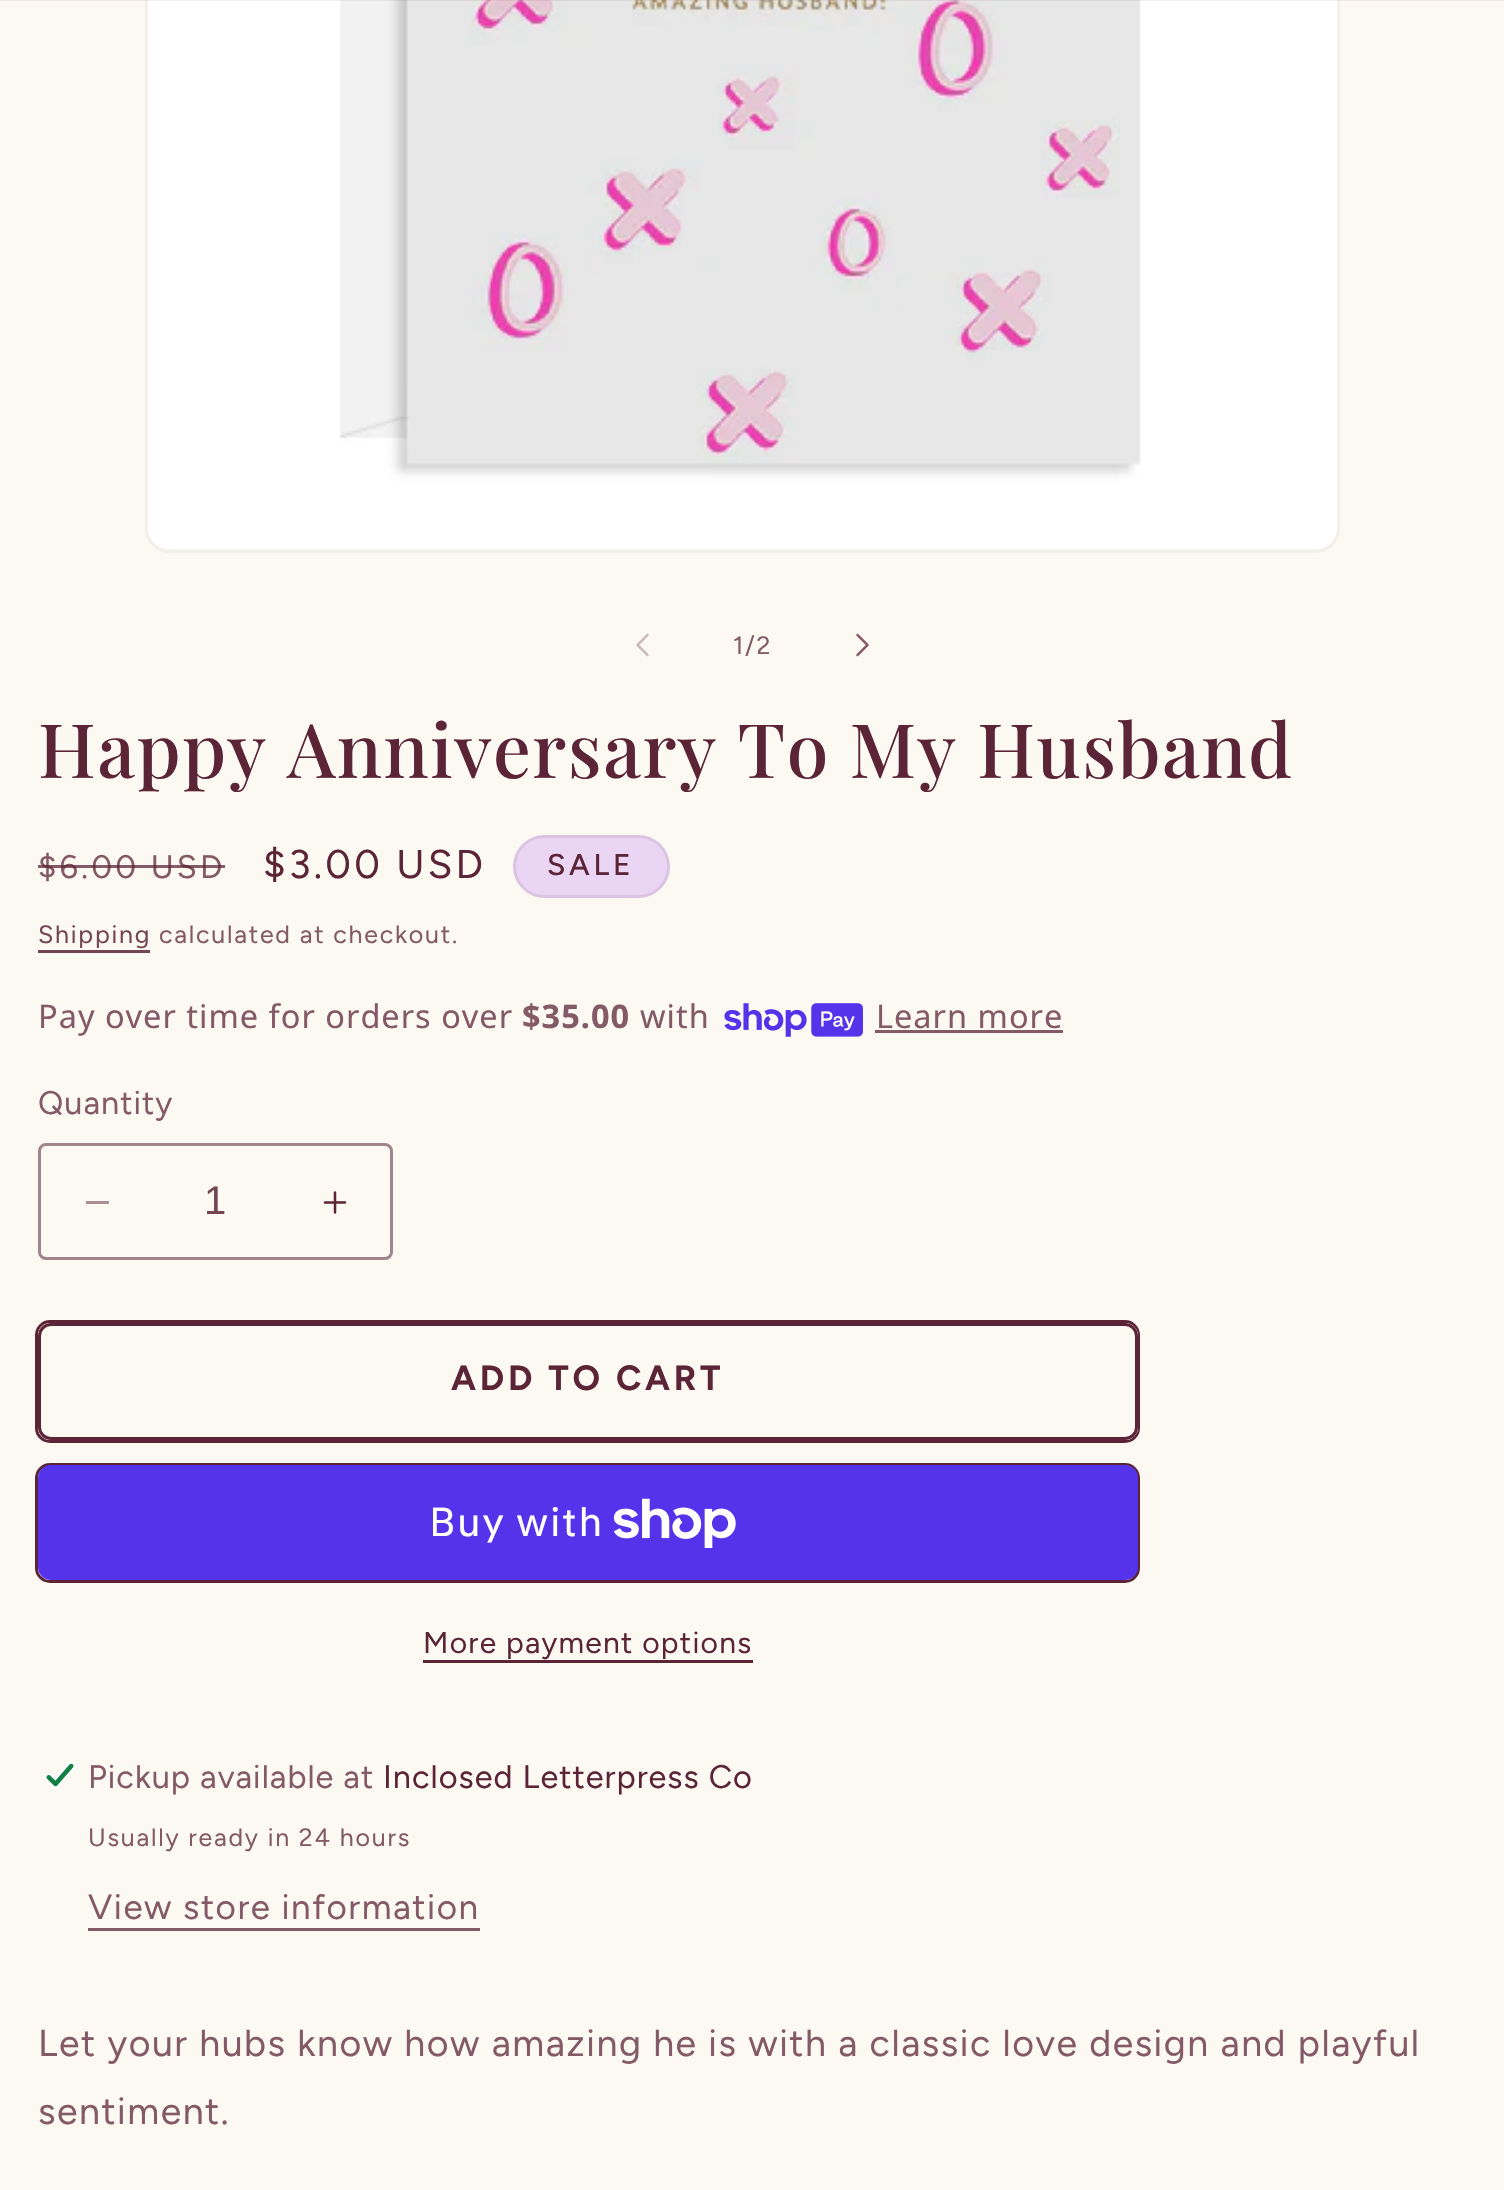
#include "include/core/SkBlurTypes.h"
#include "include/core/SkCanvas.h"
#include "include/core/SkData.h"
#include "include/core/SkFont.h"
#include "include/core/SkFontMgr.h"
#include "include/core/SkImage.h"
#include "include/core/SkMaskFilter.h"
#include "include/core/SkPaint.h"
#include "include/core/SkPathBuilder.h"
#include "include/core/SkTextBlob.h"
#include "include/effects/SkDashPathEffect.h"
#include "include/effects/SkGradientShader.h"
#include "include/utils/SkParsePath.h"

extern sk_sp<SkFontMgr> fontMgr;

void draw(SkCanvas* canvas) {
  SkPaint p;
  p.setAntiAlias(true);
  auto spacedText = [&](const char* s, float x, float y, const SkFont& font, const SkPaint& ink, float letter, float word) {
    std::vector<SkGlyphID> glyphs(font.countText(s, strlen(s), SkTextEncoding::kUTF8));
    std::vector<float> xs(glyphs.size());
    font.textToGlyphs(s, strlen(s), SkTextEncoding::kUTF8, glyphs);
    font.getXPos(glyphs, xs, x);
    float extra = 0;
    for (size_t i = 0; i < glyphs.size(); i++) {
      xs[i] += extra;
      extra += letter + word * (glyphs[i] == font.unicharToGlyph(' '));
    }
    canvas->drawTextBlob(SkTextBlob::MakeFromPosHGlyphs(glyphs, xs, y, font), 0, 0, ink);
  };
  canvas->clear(SkColorSetRGB(252, 249, 243));
  p.setStyle(SkPaint::kStroke_Style);
  p.setStrokeWidth(3);
  p.setColor(SkColorSetRGB(244, 238, 234));
  canvas->drawRoundRect(SkRect::MakeLTRB(146.5f, -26.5f, 1338.5f, 551.5f), 23.5f, 23.5f, p);
  canvas->drawImageRect(SkImages::DeferredFromEncodedData(SkData::MakeFromFileName("images/1.png")), SkRect::MakeLTRB(147, 0, 1338, 549), SkSamplingOptions());
  p.setStyle(SkPaint::kFill_Style);
  p.setColor(SkColorSetARGB(20, 92, 37, 55));
  canvas->drawRect(SkRect::MakeLTRB(0, 0, 1504, 1), p);
  canvas->drawImageRect(SkImages::DeferredFromEncodedData(SkData::MakeFromFileName("images/2.png")), SkRect::MakeLTRB(636, 633, 649, 657), SkSamplingOptions());
  canvas->drawImageRect(SkImages::DeferredFromEncodedData(SkData::MakeFromFileName("images/3.png")), SkRect::MakeLTRB(856, 633, 869, 657), SkSamplingOptions());
  p.setColor(SkColorSetRGB(235, 213, 245));
  canvas->drawRoundRect(SkRect::MakeLTRB(513, 835, 670, 898), 31.5f, 31.5f, p);
  p.setStyle(SkPaint::kStroke_Style);
  p.setColor(SkColorSetARGB(26, 92, 37, 55));
  canvas->drawRoundRect(SkRect::MakeLTRB(514.5f, 836.5f, 668.5f, 896.5f), 30, 30, p);
  p.setStyle(SkPaint::kFill_Style);
  p.setColor(SkColorSetRGB(116, 69, 83));
  canvas->drawRect(SkRect::MakeLTRB(38, 950, 150, 953), p);
  canvas->drawImageRect(SkImages::DeferredFromEncodedData(SkData::MakeFromFileName("images/4.png")), SkRect::MakeLTRB(724, 1003, 863, 1037), SkSamplingOptions());
  p.setColor(SkColorSetRGB(132, 90, 102));
  canvas->drawRect(SkRect::MakeLTRB(875, 1030, 1063, 1033), p);
  p.setColor(SkColorSetRGB(172, 143, 149));
  canvas->drawRect(SkRect::MakeLTRB(86, 1201, 109, 1204), p);
  canvas->drawImageRect(SkImages::DeferredFromEncodedData(SkData::MakeFromFileName("images/5.png")), SkRect::MakeLTRB(323, 1191, 347, 1214), SkSamplingOptions());
  p.setStyle(SkPaint::kStroke_Style);
  p.setColor(SkColorSetRGB(164, 132, 140));
  canvas->drawRoundRect(SkRect::MakeLTRB(39.5f, 1144.5f, 391.5f, 1258.5f), 6.5f, 6.5f, p);
  p.setColor(SkColorSetRGB(92, 37, 55));
  canvas->drawRoundRect(SkRect::MakeLTRB(36.5f, 1321.5f, 1138.5f, 1441.5f), 13.5f, 13.5f, p);
  p.setStyle(SkPaint::kFill_Style);
  p.setColor(SkColorSetRGB(252, 249, 243));
  canvas->drawRoundRect(SkRect::MakeLTRB(38, 1323, 1138, 1440), 13, 13, p);
  p.setStyle(SkPaint::kStroke_Style);
  canvas->drawRoundRect(SkRect::MakeLTRB(39.5f, 1324.5f, 1136.5f, 1438.5f), 11.5f, 11.5f, p);
  p.setColor(SkColorSetRGB(92, 37, 55));
  canvas->drawRoundRect(SkRect::MakeLTRB(39.5f, 1324.5f, 1136.5f, 1438.5f), 11.5f, 11.5f, p);
  canvas->drawRoundRect(SkRect::MakeLTRB(36.5f, 1464.5f, 1138.5f, 1581.5f), 13.5f, 13.5f, p);
  p.setStyle(SkPaint::kFill_Style);
  p.setColor(SkColorSetRGB(84, 51, 235));
  canvas->drawRoundRect(SkRect::MakeLTRB(38, 1465, 1138, 1580), 13, 13, p);
  canvas->drawImageRect(SkImages::DeferredFromEncodedData(SkData::MakeFromFileName("images/6.png")), SkRect::MakeLTRB(613, 1498, 736, 1548), SkSamplingOptions());
  p.setColor(SkColorSetRGB(92, 37, 55));
  canvas->drawRect(SkRect::MakeLTRB(423, 1660, 753, 1663), p);
  canvas->drawImageRect(SkImages::DeferredFromEncodedData(SkData::MakeFromFileName("images/7.png")), SkRect::MakeLTRB(44, 1761, 76, 1789), SkSamplingOptions());
  p.setColor(SkColorSetRGB(132, 90, 102));
  canvas->drawRect(SkRect::MakeLTRB(88, 1928, 480, 1931), p);
  SkFont font1(fontMgr->matchFamilyStyle("Figtree", SkFontStyle::Normal()), 25);
  font1.setSubpixel(true);
  spacedText("1/2", 733, 654, font1, p, 1.75f, 0);
  SkFont font2(fontMgr->matchFamilyStyle("Playfair Display", SkFontStyle(500, SkFontStyle::kNormal_Width, SkFontStyle::kUpright_Slant)), 75);
  font2.setSubpixel(true);
  p.setColor(SkColorSetRGB(92, 37, 55));
  spacedText("Happy Anniversary To My Husband", 38, 778, font2, p, 1.5f, 0);
  SkFont font3(fontMgr->matchFamilyStyle("Figtree", SkFontStyle::Normal()), 32.5f);
  font3.setSubpixel(true);
  p.setColor(SkColorSetRGB(132, 90, 102));
  spacedText("$6.00 USD", 38, 878, font3, p, 3.25f, 0);
  p.setColor(SkColorSetARGB(191, 92, 37, 55));
  canvas->drawRect(SkRect::MakeLTRB(38, 865, 225, 868), p);
  SkFont font4(fontMgr->matchFamilyStyle("Figtree", SkFontStyle::Normal()), 40);
  font4.setSubpixel(true);
  p.setColor(SkColorSetRGB(92, 37, 55));
  spacedText("$3.00 USD", 263, 878, font4, p, 3.25f, 0);
  SkFont font5(fontMgr->matchFamilyStyle("Figtree", SkFontStyle(500, SkFontStyle::kNormal_Width, SkFontStyle::kUpright_Slant)), 30);
  font5.setSubpixel(true);
  spacedText("SALE", 547, 875, font5, p, 3.75f, 0);
  p.setColor(SkColorSetRGB(116, 69, 83));
  spacedText("Shipping", 38, 943, font1, p, 1.75f, 0);
  p.setColor(SkColorSetRGB(132, 90, 102));
  spacedText("calculated at checkout.", 159, 943, font1, p, 1.75f, 0);
  SkFont font6(fontMgr->matchFamilyStyle("Noto Sans", SkFontStyle::Normal()), 32.5f);
  font6.setSubpixel(true);
  spacedText("Pay over time for orders over", 38, 1028, font6, p, 1, 0);
  SkFont font7(fontMgr->matchFamilyStyle("Noto Sans", SkFontStyle::Bold()), 32.5f);
  font7.setSubpixel(true);
  spacedText("$35.00", 522, 1028, font7, p, 1, 0);
  spacedText("with", 640, 1028, font6, p, 1, 0);
  spacedText("Learn more", 876, 1028, font6, p, 1, 0);
  spacedText("Quantity", 38, 1114, font3, p, 1, 0);
  SkFont font8(fontMgr->matchFamilyStyle("Liberation Sans", SkFontStyle::Normal()), 40);
  font8.setSubpixel(true);
  p.setColor(SkColorSetRGB(116, 69, 83));
  canvas->drawString("1", 204, 1214, font8, p);
  SkFont font9(fontMgr->matchFamilyStyle("Figtree", SkFontStyle::Bold()), 35);
  font9.setSubpixel(true);
  p.setColor(SkColorSetRGB(92, 37, 55));
  spacedText("ADD TO CART", 451, 1390, font9, p, 3.75f, 0);
  SkFont font10(fontMgr->matchFamilyStyle("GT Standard", SkFontStyle::Normal()), 40);
  font10.setSubpixel(true);
  p.setColor(SK_ColorWHITE);
  spacedText("Buy with", 429, 1536, font10, p, 1.5f, 0);
  SkFont font11(fontMgr->matchFamilyStyle("Figtree", SkFontStyle::Normal()), 30);
  font11.setSubpixel(true);
  p.setColor(SkColorSetRGB(92, 37, 55));
  spacedText("More payment options", 423, 1653, font11, p, 1.25f, 0);
  p.setColor(SkColorSetRGB(132, 90, 102));
  spacedText("Pickup available at", 88, 1788, font3, p, 1, 0);
  p.setColor(SkColorSetRGB(92, 37, 55));
  spacedText("Inclosed Letterpress Co", 383, 1788, font3, p, 1, 0);
  p.setColor(SkColorSetRGB(132, 90, 102));
  spacedText("Usually ready in 24 hours", 88, 1846, font1, p, 1.75f, 0);
  SkFont font12(fontMgr->matchFamilyStyle("Figtree", SkFontStyle::Normal()), 35);
  font12.setSubpixel(true);
  spacedText("View store information", 88, 1919, font12, p, 1.5f, 0);
  SkFont font13(fontMgr->matchFamilyStyle("Figtree", SkFontStyle::Normal()), 37.5f);
  font13.setSubpixel(true);
  spacedText("Let your hubs know how amazing he is with a classic love design and playful", 38, 2056, font13, p, 1.5f, 0);
  spacedText("sentiment.", 38, 2124, font13, p, 1.5f, 0);
}
